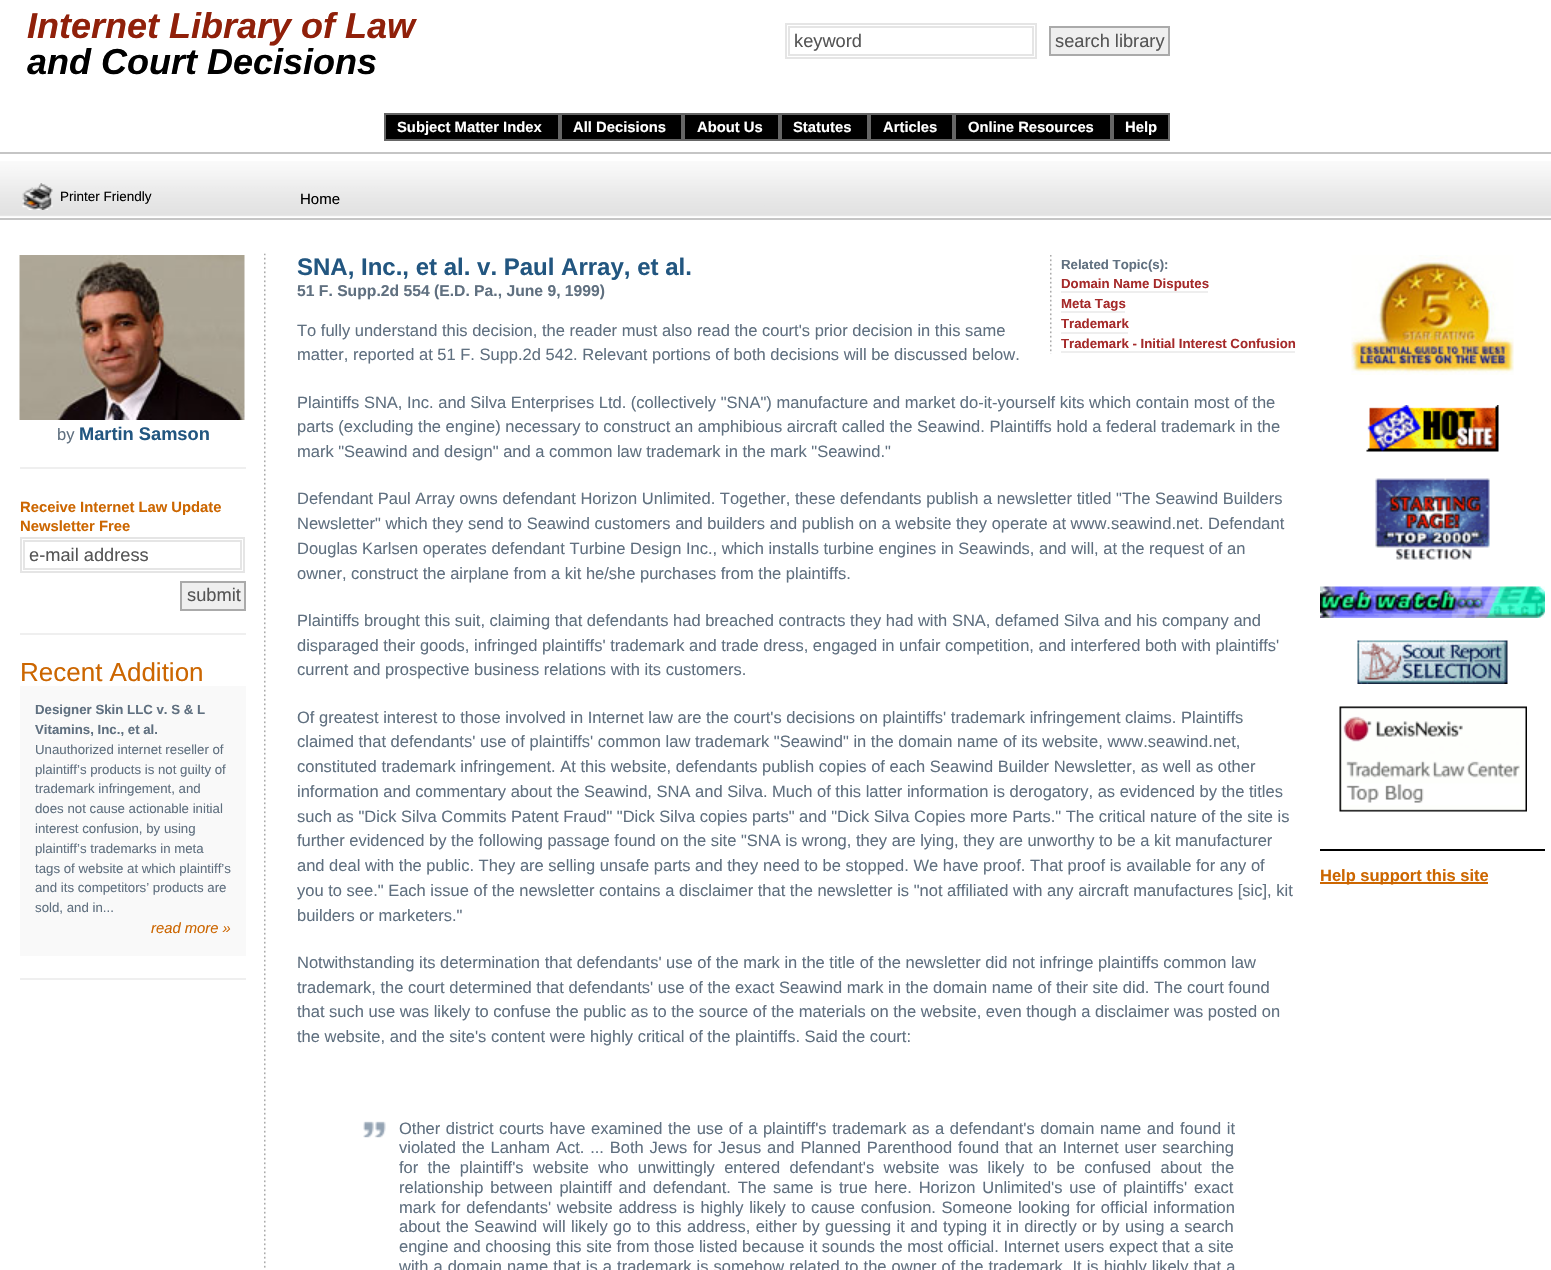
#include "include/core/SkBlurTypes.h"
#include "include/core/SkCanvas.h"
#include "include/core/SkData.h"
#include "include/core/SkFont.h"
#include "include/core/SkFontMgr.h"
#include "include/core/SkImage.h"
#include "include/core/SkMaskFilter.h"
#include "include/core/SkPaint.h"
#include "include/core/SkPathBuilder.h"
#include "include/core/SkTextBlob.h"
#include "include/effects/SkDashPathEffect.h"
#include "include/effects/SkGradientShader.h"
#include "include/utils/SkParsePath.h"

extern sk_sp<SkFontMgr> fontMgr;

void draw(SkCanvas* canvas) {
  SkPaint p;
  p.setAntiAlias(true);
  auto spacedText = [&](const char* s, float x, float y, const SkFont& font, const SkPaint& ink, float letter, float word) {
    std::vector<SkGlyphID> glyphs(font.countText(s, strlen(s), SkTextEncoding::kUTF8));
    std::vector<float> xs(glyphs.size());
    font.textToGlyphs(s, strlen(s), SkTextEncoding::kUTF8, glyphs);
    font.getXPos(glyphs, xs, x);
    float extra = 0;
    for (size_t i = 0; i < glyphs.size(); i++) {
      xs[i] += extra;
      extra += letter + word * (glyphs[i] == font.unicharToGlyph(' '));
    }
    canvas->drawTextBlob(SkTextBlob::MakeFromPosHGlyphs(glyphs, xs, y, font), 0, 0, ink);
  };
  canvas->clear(SK_ColorWHITE);
  p.setStyle(SkPaint::kStroke_Style);
  p.setStrokeWidth(2);
  p.setColor(SkColorSetRGB(229, 229, 229));
  canvas->drawRect(SkRect::MakeLTRB(786, 24, 1036, 58), p);
  canvas->drawRect(SkRect::MakeLTRB(789, 27, 1033, 55), p);
  p.setStyle(SkPaint::kFill_Style);
  p.setColor(SkColorSetRGB(239, 239, 239));
  canvas->drawRect(SkRect::MakeLTRB(1050, 27, 1169, 55), p);
  p.setStyle(SkPaint::kStroke_Style);
  p.setColor(SkColorSetRGB(170, 170, 170));
  canvas->drawRect(SkRect::MakeLTRB(1050, 27, 1169, 55), p);
  p.setStyle(SkPaint::kFill_Style);
  p.setColor(SK_ColorBLACK);
  canvas->drawRect(SkRect::MakeLTRB(385, 114, 559, 140), p);
  p.setStyle(SkPaint::kStroke_Style);
  p.setColor(SkColorSetRGB(102, 102, 102));
  canvas->drawRect(SkRect::MakeLTRB(385, 114, 559, 140), p);
  p.setStyle(SkPaint::kFill_Style);
  p.setColor(SK_ColorBLACK);
  canvas->drawRect(SkRect::MakeLTRB(561, 114, 682, 140), p);
  p.setStyle(SkPaint::kStroke_Style);
  p.setColor(SkColorSetRGB(102, 102, 102));
  canvas->drawRect(SkRect::MakeLTRB(561, 114, 682, 140), p);
  p.setStyle(SkPaint::kFill_Style);
  p.setColor(SK_ColorBLACK);
  canvas->drawRect(SkRect::MakeLTRB(684, 114, 779, 140), p);
  p.setStyle(SkPaint::kStroke_Style);
  p.setColor(SkColorSetRGB(102, 102, 102));
  canvas->drawRect(SkRect::MakeLTRB(684, 114, 779, 140), p);
  p.setStyle(SkPaint::kFill_Style);
  p.setColor(SK_ColorBLACK);
  canvas->drawRect(SkRect::MakeLTRB(781, 114, 868, 140), p);
  p.setStyle(SkPaint::kStroke_Style);
  p.setColor(SkColorSetRGB(102, 102, 102));
  canvas->drawRect(SkRect::MakeLTRB(781, 114, 868, 140), p);
  p.setStyle(SkPaint::kFill_Style);
  p.setColor(SK_ColorBLACK);
  canvas->drawRect(SkRect::MakeLTRB(870, 114, 953, 140), p);
  p.setStyle(SkPaint::kStroke_Style);
  p.setColor(SkColorSetRGB(102, 102, 102));
  canvas->drawRect(SkRect::MakeLTRB(870, 114, 953, 140), p);
  p.setStyle(SkPaint::kFill_Style);
  p.setColor(SK_ColorBLACK);
  canvas->drawRect(SkRect::MakeLTRB(955, 114, 1111, 140), p);
  p.setStyle(SkPaint::kStroke_Style);
  p.setColor(SkColorSetRGB(102, 102, 102));
  canvas->drawRect(SkRect::MakeLTRB(955, 114, 1111, 140), p);
  p.setStyle(SkPaint::kFill_Style);
  p.setColor(SK_ColorBLACK);
  canvas->drawRect(SkRect::MakeLTRB(1113, 114, 1169, 140), p);
  p.setStyle(SkPaint::kStroke_Style);
  p.setColor(SkColorSetRGB(102, 102, 102));
  canvas->drawRect(SkRect::MakeLTRB(1113, 114, 1169, 140), p);
  canvas->drawImageRect(SkImages::DeferredFromEncodedData(SkData::MakeFromFileName("images/2.png")), SkRect::MakeLTRB(0, 161, 1551, 217), SkSamplingOptions());
  canvas->drawImageRect(SkImages::DeferredFromEncodedData(SkData::MakeFromFileName("images/1.png")), SkRect::MakeLTRB(22, 183, 53, 210), SkSamplingOptions());
  p.setStyle(SkPaint::kFill_Style);
  p.setColor(SkColorSetRGB(197, 197, 197));
  canvas->drawRect(SkRect::MakeLTRB(0, 152, 1551, 154), p);
  canvas->drawRect(SkRect::MakeLTRB(0, 218, 1551, 220), p);
  canvas->drawImageRect(SkImages::DeferredFromEncodedData(SkData::MakeFromFileName("images/3.png")), SkRect::MakeLTRB(264, 253, 266, 1268), SkSamplingOptions());
  canvas->drawImageRect(SkImages::DeferredFromEncodedData(SkData::MakeFromFileName("images/4.png")), SkRect::MakeLTRB(19, 255, 245, 420), SkSamplingOptions());
  p.setColor(SkColorSetRGB(239, 239, 239));
  canvas->drawRect(SkRect::MakeLTRB(20, 467, 246, 469), p);
  canvas->drawRect(SkRect::MakeLTRB(20, 633, 246, 635), p);
  p.setStyle(SkPaint::kStroke_Style);
  p.setColor(SkColorSetRGB(229, 229, 229));
  canvas->drawRect(SkRect::MakeLTRB(21, 538, 244, 572), p);
  canvas->drawRect(SkRect::MakeLTRB(24, 541, 241, 569), p);
  p.setStyle(SkPaint::kFill_Style);
  p.setColor(SkColorSetRGB(239, 239, 239));
  canvas->drawRect(SkRect::MakeLTRB(181, 582, 245, 610), p);
  p.setStyle(SkPaint::kStroke_Style);
  p.setColor(SkColorSetRGB(170, 170, 170));
  canvas->drawRect(SkRect::MakeLTRB(181, 582, 245, 610), p);
  p.setStyle(SkPaint::kFill_Style);
  p.setColor(SkColorSetRGB(239, 239, 239));
  canvas->drawRect(SkRect::MakeLTRB(20, 978, 246, 980), p);
  p.setColor(SkColorSetRGB(249, 249, 249));
  canvas->drawRect(SkRect::MakeLTRB(20, 686, 246, 956), p);
  canvas->drawImageRect(SkImages::DeferredFromEncodedData(SkData::MakeFromFileName("images/5.png")), SkRect::MakeLTRB(1050, 255, 1052, 354), SkSamplingOptions());
  p.setColor(SkColorSetRGB(238, 238, 238));
  canvas->drawRect(SkRect::MakeLTRB(1061, 291, 1208, 293), p);
  canvas->drawRect(SkRect::MakeLTRB(1061, 311, 1125, 313), p);
  canvas->drawRect(SkRect::MakeLTRB(1061, 332, 1128, 334), p);
  canvas->drawRect(SkRect::MakeLTRB(1061, 351, 1295, 353), p);
  canvas->drawImageRect(SkImages::DeferredFromEncodedData(SkData::MakeFromFileName("images/6.png")), SkRect::MakeLTRB(363, 1121, 386, 1138), SkSamplingOptions());
  canvas->drawImageRect(SkImages::DeferredFromEncodedData(SkData::MakeFromFileName("images/7.png")), SkRect::MakeLTRB(1351, 255, 1514, 375), SkSamplingOptions());
  canvas->drawImageRect(SkImages::DeferredFromEncodedData(SkData::MakeFromFileName("images/8.png")), SkRect::MakeLTRB(1366, 405, 1499, 452), SkSamplingOptions());
  canvas->drawImageRect(SkImages::DeferredFromEncodedData(SkData::MakeFromFileName("images/9.png")), SkRect::MakeLTRB(1375, 478, 1490, 560), SkSamplingOptions());
  canvas->drawImageRect(SkImages::DeferredFromEncodedData(SkData::MakeFromFileName("images/10.png")), SkRect::MakeLTRB(1320, 586, 1545, 618), SkSamplingOptions());
  canvas->drawImageRect(SkImages::DeferredFromEncodedData(SkData::MakeFromFileName("images/11.png")), SkRect::MakeLTRB(1357, 640, 1508, 684), SkSamplingOptions());
  canvas->drawImageRect(SkImages::DeferredFromEncodedData(SkData::MakeFromFileName("images/12.png")), SkRect::MakeLTRB(1339, 706, 1527, 812), SkSamplingOptions());
  p.setColor(SK_ColorBLACK);
  canvas->drawRect(SkRect::MakeLTRB(1320, 849, 1545, 851), p);
  p.setColor(SkColorSetRGB(204, 102, 0));
  canvas->drawRect(SkRect::MakeLTRB(1320, 882, 1488, 884), p);
  SkFont font1(fontMgr->matchFamilyStyle("Liberation Sans", SkFontStyle::BoldItalic()), 36);
  font1.setSubpixel(true);
  p.setColor(SkColorSetRGB(144, 32, 10));
  canvas->drawString("Internet Library of Law", 27, 38, font1, p);
  p.setColor(SK_ColorBLACK);
  canvas->drawString("and Court Decisions", 27, 74, font1, p);
  SkFont font2(fontMgr->matchFamilyStyle("Liberation Sans", SkFontStyle::Normal()), 18.25f);
  font2.setSubpixel(true);
  p.setColor(SkColorSetRGB(85, 85, 85));
  canvas->drawString("keyword", 794, 47, font2, p);
  canvas->drawString("search library", 1055, 47, font2, p);
  SkFont font3(fontMgr->matchFamilyStyle("Liberation Sans", SkFontStyle::Bold()), 14.8f);
  font3.setSubpixel(true);
  p.setColor(SK_ColorWHITE);
  canvas->drawString("Subject Matter Index", 397, 132, font3, p);
  canvas->drawString("All Decisions", 573, 132, font3, p);
  canvas->drawString("About Us", 697, 132, font3, p);
  canvas->drawString("Statutes", 793, 132, font3, p);
  canvas->drawString("Articles", 883, 132, font3, p);
  canvas->drawString("Online Resources", 968, 132, font3, p);
  canvas->drawString("Help", 1125, 132, font3, p);
  SkFont font4(fontMgr->matchFamilyStyle("Liberation Sans", SkFontStyle::Normal()), 13.5f);
  font4.setSubpixel(true);
  p.setColor(SK_ColorBLACK);
  canvas->drawString("Printer Friendly", 60, 201, font4, p);
  SkFont font5(fontMgr->matchFamilyStyle("Liberation Sans", SkFontStyle::Normal()), 15);
  font5.setSubpixel(true);
  canvas->drawString("Home", 300, 204, font5, p);
  SkFont font6(fontMgr->matchFamilyStyle("Liberation Sans", SkFontStyle::Normal()), 16.5f);
  font6.setSubpixel(true);
  p.setColor(SkColorSetRGB(96, 112, 128));
  canvas->drawString("by", 57, 440, font6, p);
  SkFont font7(fontMgr->matchFamilyStyle("Liberation Sans", SkFontStyle::Bold()), 18.25f);
  font7.setSubpixel(true);
  p.setColor(SkColorSetRGB(34, 86, 128));
  canvas->drawString("Martin Samson", 79, 440, font7, p);
  p.setColor(SkColorSetRGB(204, 102, 0));
  canvas->drawString("Receive Internet Law Update", 20, 512, font3, p);
  canvas->drawString("Newsletter Free", 20, 531, font3, p);
  p.setColor(SkColorSetRGB(85, 85, 85));
  canvas->drawString("e-mail address", 29, 561, font2, p);
  canvas->drawString("submit", 187, 601, font2, p);
  SkFont font8(fontMgr->matchFamilyStyle("Liberation Sans", SkFontStyle::Normal()), 26);
  font8.setSubpixel(true);
  p.setColor(SkColorSetRGB(204, 102, 0));
  canvas->drawString("Recent Addition", 20, 681, font8, p);
  SkFont font9(fontMgr->matchFamilyStyle("Liberation Sans", SkFontStyle::Bold()), 13.25f);
  font9.setSubpixel(true);
  p.setColor(SkColorSetRGB(96, 112, 128));
  canvas->drawString("Designer Skin LLC v. S & L", 35, 714, font9, p);
  canvas->drawString("Vitamins, Inc., et al.", 35, 734, font9, p);
  SkFont font10(fontMgr->matchFamilyStyle("Liberation Sans", SkFontStyle::Normal()), 13.25f);
  font10.setSubpixel(true);
  canvas->drawString("Unauthorized internet reseller of", 35, 754, font10, p);
  canvas->drawString("plaintiff’s products is not guilty of", 35, 774, font10, p);
  canvas->drawString("trademark infringement, and", 35, 793, font10, p);
  canvas->drawString("does not cause actionable initial", 35, 813, font10, p);
  canvas->drawString("interest confusion, by using", 35, 833, font10, p);
  canvas->drawString("plaintiff’s trademarks in meta", 35, 853, font10, p);
  canvas->drawString("tags of website at which plaintiff’s", 35, 873, font10, p);
  canvas->drawString("and its competitors’ products are", 35, 892, font10, p);
  canvas->drawString("sold, and in...", 35, 912, font10, p);
  SkFont font11(fontMgr->matchFamilyStyle("Liberation Sans", SkFontStyle::Italic()), 14.8f);
  font11.setSubpixel(true);
  p.setColor(SkColorSetRGB(204, 102, 0));
  canvas->drawString("read more »", 151, 933, font11, p);
  SkFont font12(fontMgr->matchFamilyStyle("Liberation Sans", SkFontStyle::Bold()), 24);
  font12.setSubpixel(true);
  p.setColor(SkColorSetRGB(34, 86, 128));
  canvas->drawString("SNA, Inc., et al. v. Paul Array, et al.", 297, 275, font12, p);
  p.setColor(SkColorSetRGB(96, 112, 128));
  canvas->drawString("Related Topic(s):", 1061, 269, font9, p);
  p.setColor(SkColorSetRGB(165, 42, 42));
  canvas->drawString("Domain Name Disputes", 1061, 288, font9, p);
  canvas->drawString("Meta Tags", 1061, 308, font9, p);
  canvas->drawString("Trademark", 1061, 328, font9, p);
  canvas->drawString("Trademark - Initial Interest Confusion", 1061, 348, font9, p);
  SkFont font13(fontMgr->matchFamilyStyle("Liberation Sans", SkFontStyle::Bold()), 15.7f);
  font13.setSubpixel(true);
  p.setColor(SkColorSetRGB(96, 112, 128));
  canvas->drawString("51 F. Supp.2d 554 (E.D. Pa., June 9, 1999)", 297, 296, font13, p);
  canvas->drawString("To fully understand this decision, the reader must also read the court's prior decision in this same", 297, 336, font6, p);
  canvas->drawString("matter, reported at 51 F. Supp.2d 542. Relevant portions of both decisions will be discussed below.", 297, 360, font6, p);
  canvas->drawString("Plaintiffs SNA, Inc. and Silva Enterprises Ltd. (collectively \"SNA\") manufacture and market do-it-yourself kits which contain most of the", 297, 408, font6, p);
  canvas->drawString("parts (excluding the engine) necessary to construct an amphibious aircraft called the Seawind. Plaintiffs hold a federal trademark in the", 297, 432, font6, p);
  canvas->drawString("mark \"Seawind and design\" and a common law trademark in the mark \"Seawind.\"", 297, 457, font6, p);
  canvas->drawString("Defendant Paul Array owns defendant Horizon Unlimited. Together, these defendants publish a newsletter titled \"The Seawind Builders", 297, 504, font6, p);
  canvas->drawString("Newsletter\" which they send to Seawind customers and builders and publish on a website they operate at www.seawind.net. Defendant", 297, 529, font6, p);
  canvas->drawString("Douglas Karlsen operates defendant Turbine Design Inc., which installs turbine engines in Seawinds, and will, at the request of an", 297, 554, font6, p);
  canvas->drawString("owner, construct the airplane from a kit he/she purchases from the plaintiffs.", 297, 579, font6, p);
  canvas->drawString("Plaintiffs brought this suit, claiming that defendants had breached contracts they had with SNA, defamed Silva and his company and", 297, 626, font6, p);
  canvas->drawString("disparaged their goods, infringed plaintiffs' trademark and trade dress, engaged in unfair competition, and interfered both with plaintiffs'", 297, 651, font6, p);
  canvas->drawString("current and prospective business relations with its customers.", 297, 675, font6, p);
  canvas->drawString("Of greatest interest to those involved in Internet law are the court's decisions on plaintiffs' trademark infringement claims. Plaintiffs", 297, 723, font6, p);
  canvas->drawString("claimed that defendants' use of plaintiffs' common law trademark \"Seawind\" in the domain name of its website, www.seawind.net,", 297, 747, font6, p);
  canvas->drawString("constituted trademark infringement. At this website, defendants publish copies of each Seawind Builder Newsletter, as well as other", 297, 772, font6, p);
  canvas->drawString("information and commentary about the Seawind, SNA and Silva. Much of this latter information is derogatory, as evidenced by the titles", 297, 797, font6, p);
  canvas->drawString("such as \"Dick Silva Commits Patent Fraud\" \"Dick Silva copies parts\" and \"Dick Silva Copies more Parts.\" The critical nature of the site is", 297, 822, font6, p);
  canvas->drawString("further evidenced by the following passage found on the site \"SNA is wrong, they are lying, they are unworthy to be a kit manufacturer", 297, 846, font6, p);
  canvas->drawString("and deal with the public. They are selling unsafe parts and they need to be stopped. We have proof. That proof is available for any of", 297, 871, font6, p);
  canvas->drawString("you to see.\" Each issue of the newsletter contains a disclaimer that the newsletter is \"not affiliated with any aircraft manufactures [sic], kit", 297, 896, font6, p);
  canvas->drawString("builders or marketers.\"", 297, 921, font6, p);
  canvas->drawString("Notwithstanding its determination that defendants' use of the mark in the title of the newsletter did not infringe plaintiffs common law", 297, 968, font6, p);
  canvas->drawString("trademark, the court determined that defendants' use of the exact Seawind mark in the domain name of their site did. The court found", 297, 993, font6, p);
  canvas->drawString("that such use was likely to confuse the public as to the source of the materials on the website, even though a disclaimer was posted on", 297, 1017, font6, p);
  canvas->drawString("the website, and the site's content were highly critical of the plaintiffs. Said the court:", 297, 1042, font6, p);
  spacedText("Other district courts have examined the use of a plaintiff's trademark as a defendant's domain name and found it", 399, 1134, font6, p, 0, 1);
  spacedText("violated the Lanham Act. ... Both Jews for Jesus and Planned Parenthood found that an Internet user searching", 399, 1153, font6, p, 0, 1.25f);
  spacedText("for the plaintiff's website who unwittingly entered defendant's website was likely to be confused about the", 399, 1173, font6, p, 0, 4.75f);
  spacedText("relationship between plaintiff and defendant. The same is true here. Horizon Unlimited's use of plaintiffs' exact", 399, 1193, font6, p, 0, 2.25f);
  spacedText("mark for defendants' website address is highly likely to cause confusion. Someone looking for official information", 399, 1213, font6, p, 0, 1.1f);
  spacedText("about the Seawind will likely go to this address, either by guessing it and typing it in directly or by using a search", 399, 1232, font6, p, 0, 0.8f);
  canvas->drawString("engine and choosing this site from those listed because it sounds the most official. Internet users expect that a site", 399, 1252, font6, p);
  spacedText("with a domain name that is a trademark is somehow related to the owner of the trademark. It is highly likely that a", 399, 1272, font6, p, 0, 0.5f);
  SkFont font14(fontMgr->matchFamilyStyle("Liberation Sans", SkFontStyle::Bold()), 16.5f);
  font14.setSubpixel(true);
  p.setColor(SkColorSetRGB(204, 102, 0));
  canvas->drawString("Help support this site", 1320, 881, font14, p);
}
